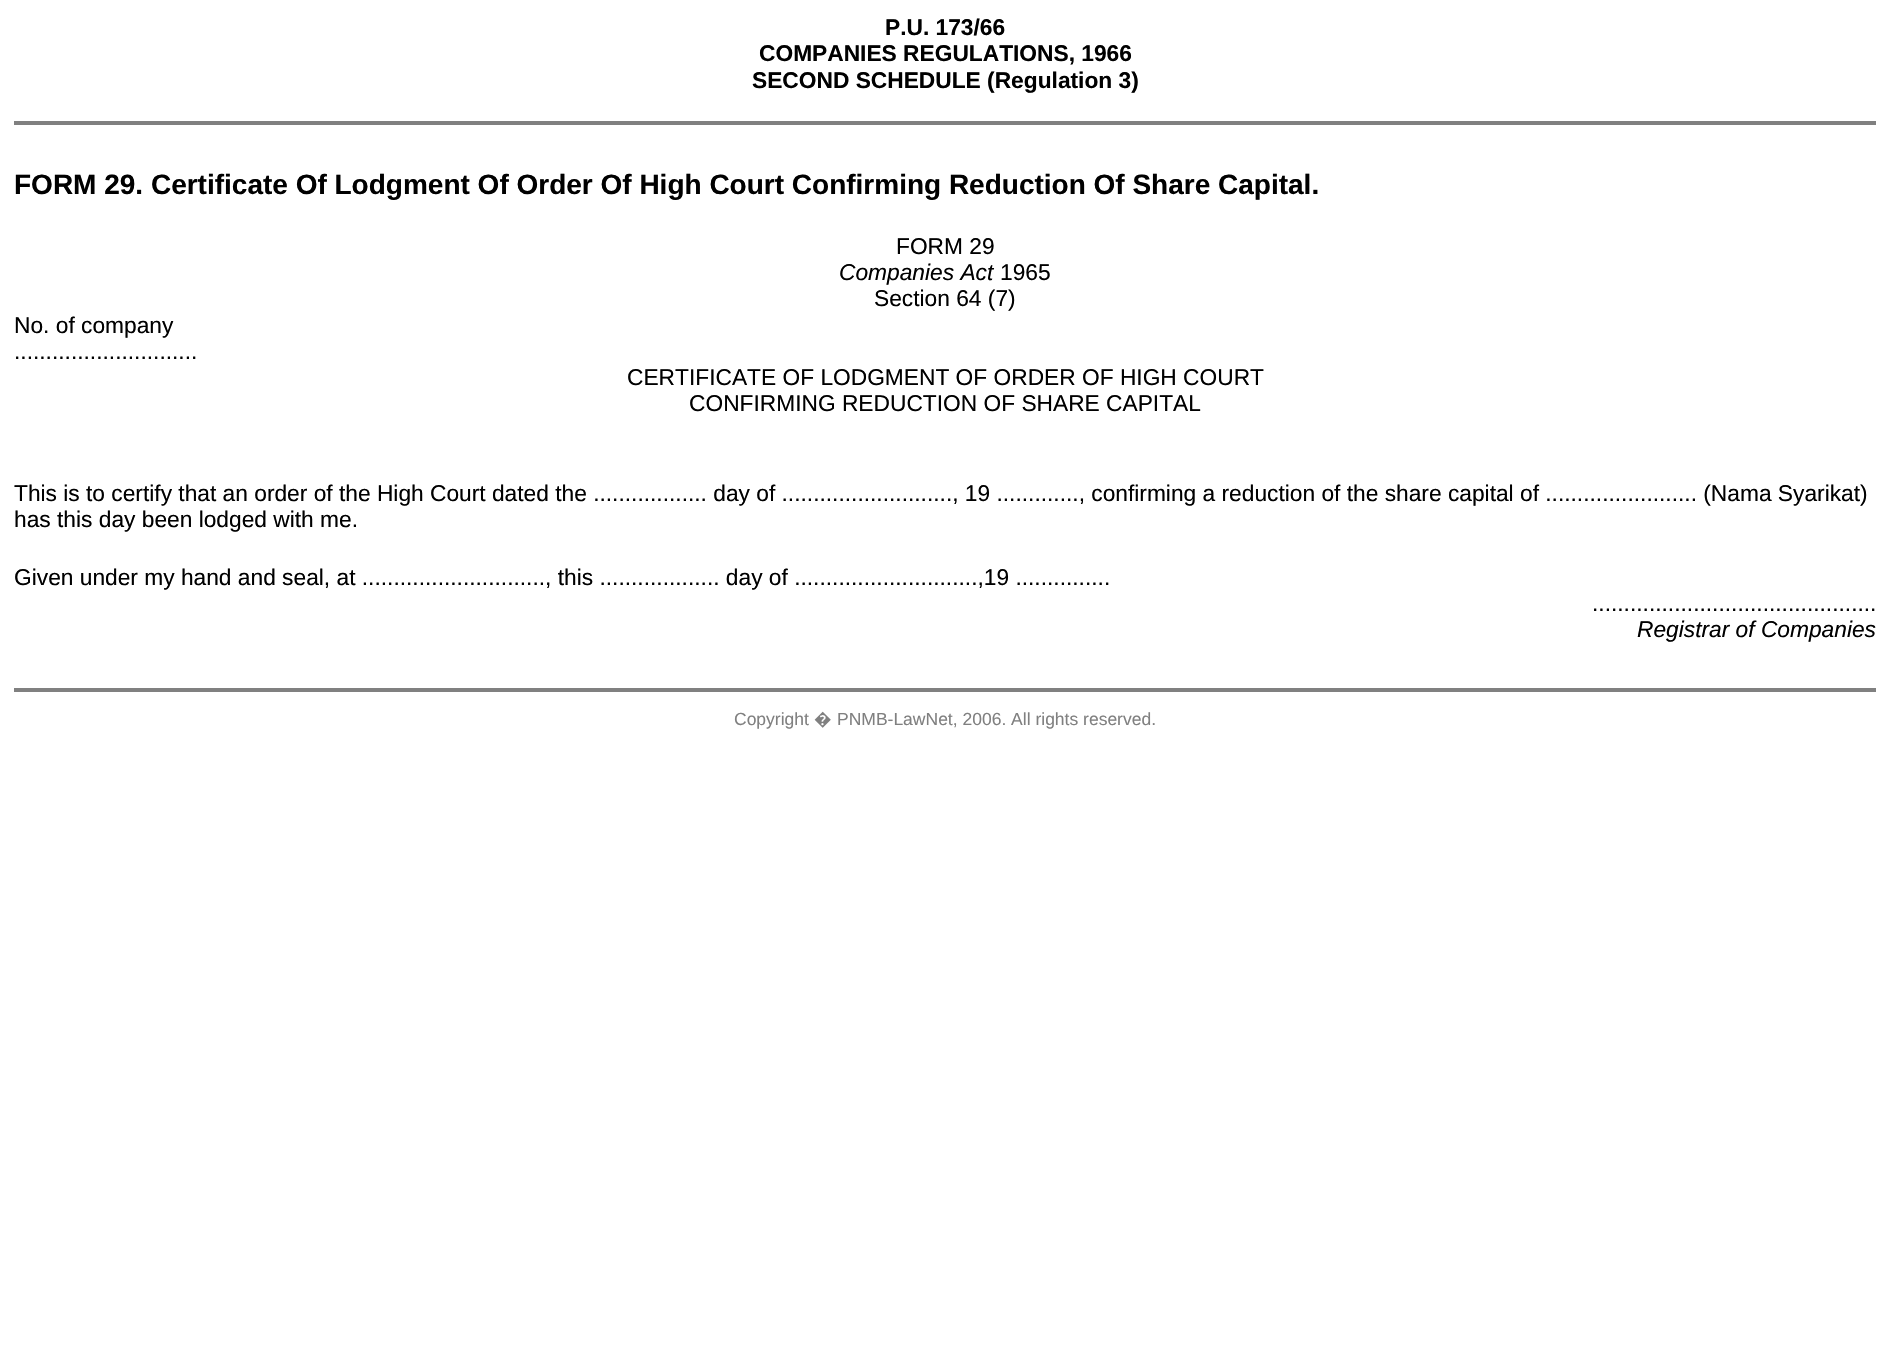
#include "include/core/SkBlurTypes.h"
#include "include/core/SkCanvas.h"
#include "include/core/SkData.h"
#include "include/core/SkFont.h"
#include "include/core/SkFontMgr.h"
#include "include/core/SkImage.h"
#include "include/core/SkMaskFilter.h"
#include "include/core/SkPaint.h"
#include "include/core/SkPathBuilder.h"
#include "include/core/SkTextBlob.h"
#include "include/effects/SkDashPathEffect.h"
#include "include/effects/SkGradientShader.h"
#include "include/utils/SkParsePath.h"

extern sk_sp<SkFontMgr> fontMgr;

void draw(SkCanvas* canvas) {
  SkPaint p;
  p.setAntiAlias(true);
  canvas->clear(SK_ColorWHITE);
  p.setColor(SkColorSetRGB(128, 128, 128));
  canvas->drawRect(SkRect::MakeLTRB(14, 121, 1876, 125), p);
  canvas->drawRect(SkRect::MakeLTRB(14, 688, 1876, 692), p);
  SkFont font1(fontMgr->matchFamilyStyle("Liberation Sans", SkFontStyle::Bold()), 22.75f);
  font1.setSubpixel(true);
  p.setColor(SK_ColorBLACK);
  canvas->drawString("P.U. 173/66", 885, 35, font1, p);
  canvas->drawString("COMPANIES REGULATIONS, 1966", 759, 61, font1, p);
  canvas->drawString("SECOND SCHEDULE (Regulation 3)", 752, 88, font1, p);
  SkFont font2(fontMgr->matchFamilyStyle("Liberation Sans", SkFontStyle::Bold()), 28);
  font2.setSubpixel(true);
  canvas->drawString("FORM 29. Certificate Of Lodgment Of Order Of High Court Confirming Reduction Of Share Capital.", 14, 194, font2, p);
  SkFont font3(fontMgr->matchFamilyStyle("Liberation Sans", SkFontStyle::Normal()), 22.75f);
  font3.setSubpixel(true);
  canvas->drawString("FORM 29", 896, 254, font3, p);
  SkFont font4(fontMgr->matchFamilyStyle("Liberation Sans", SkFontStyle::Italic()), 22.75f);
  font4.setSubpixel(true);
  canvas->drawString("Companies Act", 839, 280, font4, p);
  canvas->drawString("1965", 1000, 280, font3, p);
  canvas->drawString("Section 64 (7)", 874, 306, font3, p);
  canvas->drawString("No. of company", 14, 333, font3, p);
  canvas->drawString(".............................", 14, 359, font3, p);
  canvas->drawString("CERTIFICATE OF LODGMENT OF ORDER OF HIGH COURT", 627, 385, font3, p);
  canvas->drawString("CONFIRMING REDUCTION OF SHARE CAPITAL", 689, 411, font3, p);
  canvas->drawString("This is to certify that an order of the High Court dated the .................. day of ..........................., 19 ............., confirming a reduction of the share capital of ........................ (Nama Syarikat)", 14, 501, font3, p);
  canvas->drawString("has this day been lodged with me.", 14, 527, font3, p);
  canvas->drawString("Given under my hand and seal, at ............................., this ................... day of .............................,19 ...............", 14, 585, font3, p);
  canvas->drawString(".............................................", 1592, 611, font3, p);
  canvas->drawString("Registrar of Companies", 1637, 637, font4, p);
  SkFont font5(fontMgr->matchFamilyStyle("Liberation Sans", SkFontStyle::Normal()), 17.5f);
  font5.setSubpixel(true);
  p.setColor(SkColorSetRGB(128, 128, 128));
  canvas->drawString("Copyright", 734, 725, font5, p);
  SkFont font6(fontMgr->matchFamilyStyle("Noto Sans", SkFontStyle::Normal()), 17.5f);
  font6.setSubpixel(true);
  canvas->drawString("�", 814, 725, font6, p);
  canvas->drawString("PNMB-LawNet, 2006. All rights reserved.", 837, 725, font5, p);
}
